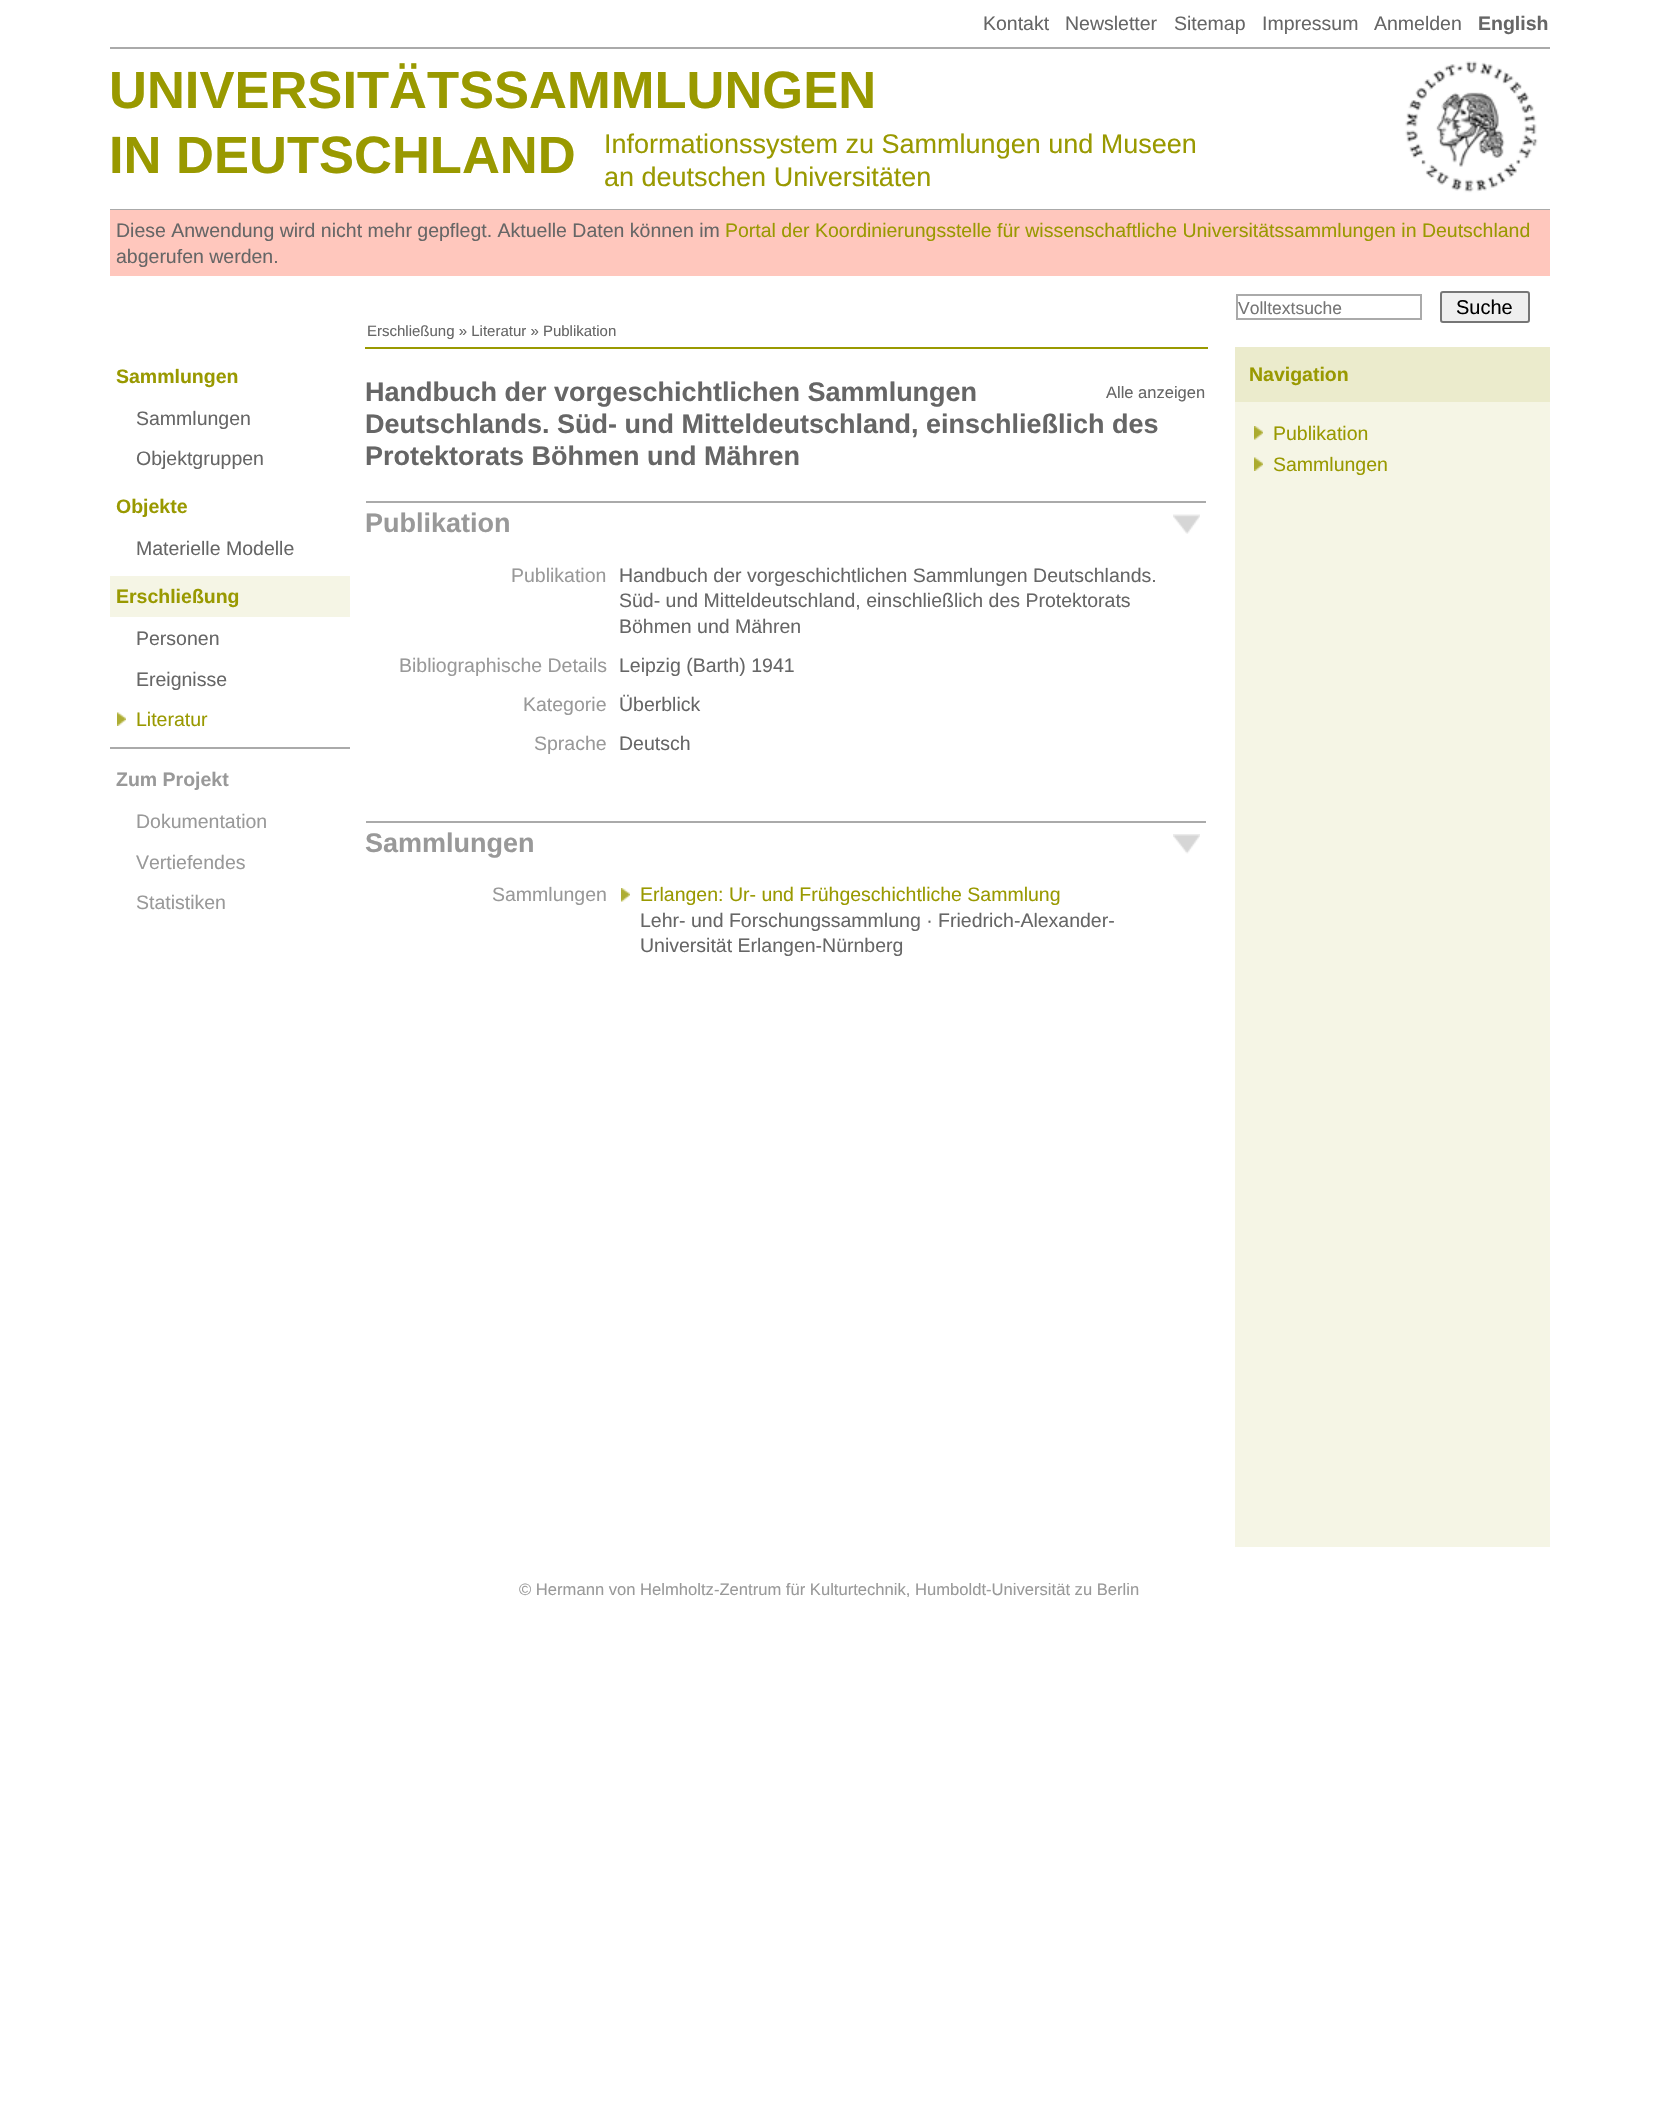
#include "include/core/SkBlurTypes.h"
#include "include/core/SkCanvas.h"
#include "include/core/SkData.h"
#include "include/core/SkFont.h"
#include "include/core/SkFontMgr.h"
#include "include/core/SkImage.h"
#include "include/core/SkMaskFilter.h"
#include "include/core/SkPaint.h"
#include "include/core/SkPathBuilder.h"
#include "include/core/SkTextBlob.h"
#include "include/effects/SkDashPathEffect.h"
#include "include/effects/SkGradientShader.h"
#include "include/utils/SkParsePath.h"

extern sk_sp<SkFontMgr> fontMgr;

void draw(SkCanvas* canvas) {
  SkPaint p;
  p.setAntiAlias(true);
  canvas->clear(SK_ColorWHITE);
  p.setColor(SkColorSetRGB(170, 170, 170));
  canvas->drawRect(SkRect::MakeLTRB(110, 47, 1550, 49), p);
  canvas->drawRect(SkRect::MakeLTRB(110, 209, 1550, 210), p);
  canvas->drawImageRect(SkImages::DeferredFromEncodedData(SkData::MakeFromFileName("images/1.png")), SkRect::MakeLTRB(1405, 61, 1538, 193), SkSamplingOptions());
  p.setColor(SkColorSetRGB(255, 199, 189));
  canvas->drawRect(SkRect::MakeLTRB(110, 210, 1550, 276), p);
  p.setStyle(SkPaint::kStroke_Style);
  p.setStrokeWidth(2);
  p.setColor(SkColorSetRGB(170, 170, 170));
  canvas->drawRect(SkRect::MakeLTRB(1237, 295, 1421, 319), p);
  p.setStyle(SkPaint::kFill_Style);
  p.setColor(SkColorSetRGB(239, 239, 239));
  canvas->drawRoundRect(SkRect::MakeLTRB(1441, 292, 1529, 322), 2, 2, p);
  p.setStyle(SkPaint::kStroke_Style);
  p.setColor(SkColorSetRGB(118, 118, 118));
  canvas->drawRoundRect(SkRect::MakeLTRB(1441, 292, 1529, 322), 2, 2, p);
  p.setStyle(SkPaint::kFill_Style);
  p.setColor(SkColorSetRGB(245, 245, 229));
  canvas->drawRect(SkRect::MakeLTRB(110, 576, 350, 617), p);
  canvas->drawImageRect(SkImages::DeferredFromEncodedData(SkData::MakeFromFileName("images/2.png")), SkRect::MakeLTRB(117, 712, 126, 726), SkSamplingOptions());
  p.setColor(SkColorSetRGB(170, 170, 170));
  canvas->drawRect(SkRect::MakeLTRB(110, 747, 350, 749), p);
  p.setColor(SkColorSetRGB(153, 153, 0));
  canvas->drawRect(SkRect::MakeLTRB(365, 347, 1208, 349), p);
  p.setColor(SkColorSetRGB(170, 170, 170));
  canvas->drawRect(SkRect::MakeLTRB(366, 501, 1206, 503), p);
  canvas->drawImageRect(SkImages::DeferredFromEncodedData(SkData::MakeFromFileName("images/3.png")), SkRect::MakeLTRB(1173, 514, 1200, 534), SkSamplingOptions());
  canvas->drawRect(SkRect::MakeLTRB(366, 821, 1206, 823), p);
  canvas->drawImageRect(SkImages::DeferredFromEncodedData(SkData::MakeFromFileName("images/4.png")), SkRect::MakeLTRB(1173, 834, 1200, 854), SkSamplingOptions());
  canvas->drawImageRect(SkImages::DeferredFromEncodedData(SkData::MakeFromFileName("images/5.png")), SkRect::MakeLTRB(621, 888, 630, 902), SkSamplingOptions());
  p.setColor(SkColorSetRGB(245, 245, 229));
  canvas->drawRect(SkRect::MakeLTRB(1235, 402, 1550, 1547), p);
  p.setColor(SkColorSetRGB(235, 235, 204));
  canvas->drawRect(SkRect::MakeLTRB(1235, 347, 1550, 402), p);
  canvas->drawImageRect(SkImages::DeferredFromEncodedData(SkData::MakeFromFileName("images/6.png")), SkRect::MakeLTRB(1254, 426, 1263, 440), SkSamplingOptions());
  canvas->drawImageRect(SkImages::DeferredFromEncodedData(SkData::MakeFromFileName("images/7.png")), SkRect::MakeLTRB(1254, 457, 1263, 471), SkSamplingOptions());
  SkFont font1(fontMgr->matchFamilyStyle("Liberation Sans", SkFontStyle::Normal()), 19.5f);
  font1.setSubpixel(true);
  p.setColor(SkColorSetRGB(102, 102, 102));
  canvas->drawString("Kontakt", 983, 30, font1, p);
  canvas->drawString("Newsletter", 1065, 30, font1, p);
  canvas->drawString("Sitemap", 1174, 30, font1, p);
  canvas->drawString("Impressum", 1262, 30, font1, p);
  canvas->drawString("Anmelden", 1374, 30, font1, p);
  SkFont font2(fontMgr->matchFamilyStyle("Liberation Sans", SkFontStyle::Bold()), 19.5f);
  font2.setSubpixel(true);
  canvas->drawString("English", 1478, 30, font2, p);
  SkFont font3(fontMgr->matchFamilyStyle("Liberation Sans", SkFontStyle::Bold()), 52.5f);
  font3.setSubpixel(true);
  p.setColor(SkColorSetRGB(153, 153, 0));
  canvas->drawString("UNIVERSITÄTSSAMMLUNGEN", 109, 108, font3, p);
  canvas->drawString("IN DEUTSCHLAND", 109, 173, font3, p);
  SkFont font4(fontMgr->matchFamilyStyle("Liberation Sans", SkFontStyle::Normal()), 27);
  font4.setSubpixel(true);
  canvas->drawString("Informationssystem zu Sammlungen und Museen", 604, 153, font4, p);
  canvas->drawString("an deutschen Universitäten", 604, 186, font4, p);
  p.setColor(SkColorSetRGB(102, 102, 102));
  canvas->drawString("Diese Anwendung wird nicht mehr gepflegt. Aktuelle Daten können im", 116, 237, font1, p);
  p.setColor(SkColorSetRGB(153, 153, 0));
  canvas->drawString("Portal der Koordinierungsstelle für wissenschaftliche Universitätssammlungen in Deutschland", 725, 237, font1, p);
  p.setColor(SkColorSetRGB(102, 102, 102));
  canvas->drawString("abgerufen werden.", 116, 263, font1, p);
  SkFont font5(fontMgr->matchFamilyStyle("Liberation Sans", SkFontStyle::Normal()), 17.5f);
  font5.setSubpixel(true);
  p.setColor(SkColorSetRGB(117, 117, 117));
  canvas->drawString("Volltextsuche", 1238, 314, font5, p);
  SkFont font6(fontMgr->matchFamilyStyle("Liberation Sans", SkFontStyle::Normal()), 20);
  font6.setSubpixel(true);
  p.setColor(SK_ColorBLACK);
  canvas->drawString("Suche", 1456, 314, font6, p);
  SkFont font7(fontMgr->matchFamilyStyle("Liberation Sans", SkFontStyle::Normal()), 15);
  font7.setSubpixel(true);
  p.setColor(SkColorSetRGB(102, 102, 102));
  canvas->drawString("Erschließung » Literatur » Publikation", 367, 336, font7, p);
  p.setColor(SkColorSetRGB(153, 153, 0));
  canvas->drawString("Sammlungen", 116, 383, font2, p);
  p.setColor(SkColorSetRGB(102, 102, 102));
  canvas->drawString("Sammlungen", 136, 425, font1, p);
  canvas->drawString("Objektgruppen", 136, 465, font1, p);
  p.setColor(SkColorSetRGB(153, 153, 0));
  canvas->drawString("Objekte", 116, 513, font2, p);
  p.setColor(SkColorSetRGB(102, 102, 102));
  canvas->drawString("Materielle Modelle", 136, 555, font1, p);
  p.setColor(SkColorSetRGB(153, 153, 0));
  canvas->drawString("Erschließung", 116, 603, font2, p);
  p.setColor(SkColorSetRGB(102, 102, 102));
  canvas->drawString("Personen", 136, 645, font1, p);
  canvas->drawString("Ereignisse", 136, 686, font1, p);
  p.setColor(SkColorSetRGB(153, 153, 0));
  canvas->drawString("Literatur", 136, 726, font1, p);
  p.setColor(SkColorSetRGB(153, 153, 153));
  canvas->drawString("Zum Projekt", 116, 786, font2, p);
  canvas->drawString("Dokumentation", 136, 828, font1, p);
  canvas->drawString("Vertiefendes", 136, 869, font1, p);
  canvas->drawString("Statistiken", 136, 909, font1, p);
  SkFont font8(fontMgr->matchFamilyStyle("Liberation Sans", SkFontStyle::Bold()), 27);
  font8.setSubpixel(true);
  p.setColor(SkColorSetRGB(102, 102, 102));
  canvas->drawString("Handbuch der vorgeschichtlichen Sammlungen", 365, 401, font8, p);
  SkFont font9(fontMgr->matchFamilyStyle("Liberation Sans", SkFontStyle::Normal()), 16.5f);
  font9.setSubpixel(true);
  canvas->drawString("Alle anzeigen", 1106, 398, font9, p);
  canvas->drawString("Deutschlands. Süd- und Mitteldeutschland, einschließlich des", 365, 433, font8, p);
  canvas->drawString("Protektorats Böhmen und Mähren", 365, 465, font8, p);
  p.setColor(SkColorSetRGB(153, 153, 153));
  canvas->drawString("Publikation", 365, 532, font8, p);
  canvas->drawString("Publikation", 511, 582, font1, p);
  p.setColor(SkColorSetRGB(102, 102, 102));
  canvas->drawString("Handbuch der vorgeschichtlichen Sammlungen Deutschlands.", 619, 582, font1, p);
  canvas->drawString("Süd- und Mitteldeutschland, einschließlich des Protektorats", 619, 607, font1, p);
  canvas->drawString("Böhmen und Mähren", 619, 633, font1, p);
  p.setColor(SkColorSetRGB(153, 153, 153));
  canvas->drawString("Bibliographische Details", 399, 672, font1, p);
  p.setColor(SkColorSetRGB(102, 102, 102));
  canvas->drawString("Leipzig (Barth) 1941", 619, 672, font1, p);
  p.setColor(SkColorSetRGB(153, 153, 153));
  canvas->drawString("Kategorie", 523, 711, font1, p);
  p.setColor(SkColorSetRGB(102, 102, 102));
  canvas->drawString("Überblick", 619, 711, font1, p);
  p.setColor(SkColorSetRGB(153, 153, 153));
  canvas->drawString("Sprache", 534, 750, font1, p);
  p.setColor(SkColorSetRGB(102, 102, 102));
  canvas->drawString("Deutsch", 619, 750, font1, p);
  p.setColor(SkColorSetRGB(153, 153, 153));
  canvas->drawString("Sammlungen", 365, 852, font8, p);
  canvas->drawString("Sammlungen", 492, 901, font1, p);
  p.setColor(SkColorSetRGB(153, 153, 0));
  canvas->drawString("Erlangen: Ur- und Frühgeschichtliche Sammlung", 640, 901, font1, p);
  p.setColor(SkColorSetRGB(102, 102, 102));
  canvas->drawString("Lehr- und Forschungssammlung · Friedrich-Alexander-", 640, 927, font1, p);
  canvas->drawString("Universität Erlangen-Nürnberg", 640, 952, font1, p);
  p.setColor(SkColorSetRGB(153, 153, 0));
  canvas->drawString("Navigation", 1249, 381, font2, p);
  canvas->drawString("Publikation", 1273, 440, font1, p);
  canvas->drawString("Sammlungen", 1273, 471, font1, p);
  SkFont font10(fontMgr->matchFamilyStyle("Liberation Sans", SkFontStyle::Normal()), 16.6f);
  font10.setSubpixel(true);
  p.setColor(SkColorSetRGB(153, 153, 153));
  canvas->drawString("© Hermann von Helmholtz-Zentrum für Kulturtechnik, Humboldt-Universität zu Berlin", 519, 1595, font10, p);
}
